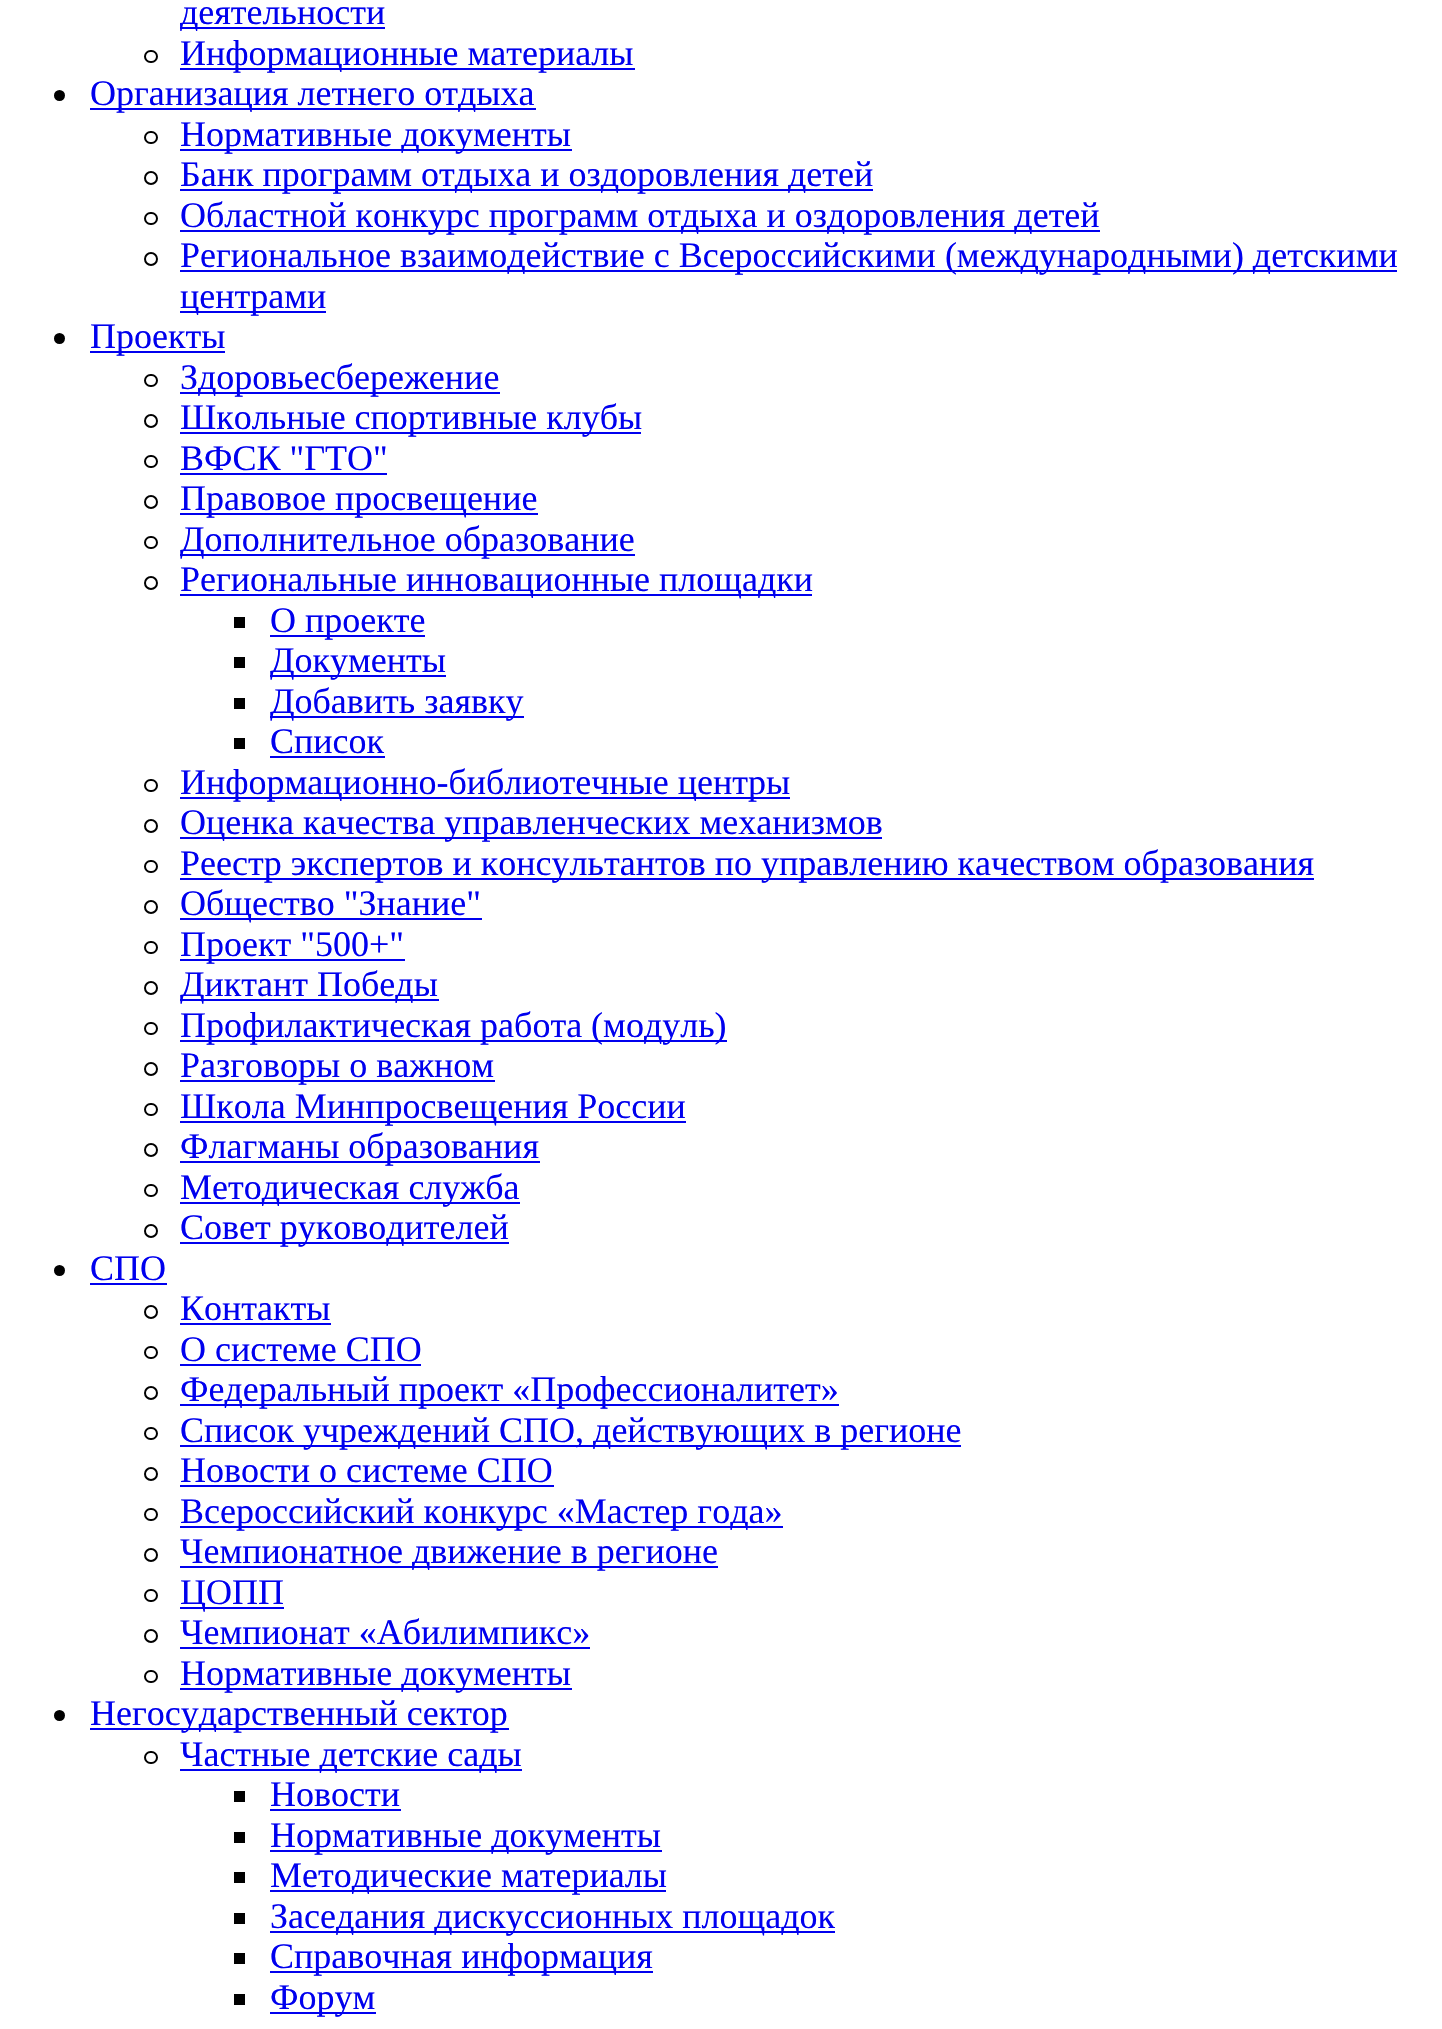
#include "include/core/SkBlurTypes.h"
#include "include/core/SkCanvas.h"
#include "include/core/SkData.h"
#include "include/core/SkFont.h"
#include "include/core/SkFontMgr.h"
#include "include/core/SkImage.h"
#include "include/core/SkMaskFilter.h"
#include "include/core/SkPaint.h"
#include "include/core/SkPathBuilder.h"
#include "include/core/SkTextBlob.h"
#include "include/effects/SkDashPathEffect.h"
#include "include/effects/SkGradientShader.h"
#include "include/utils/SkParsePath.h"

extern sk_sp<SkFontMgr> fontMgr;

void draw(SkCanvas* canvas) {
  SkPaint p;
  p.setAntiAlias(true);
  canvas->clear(SK_ColorWHITE);
  p.setColor(SkColorSetRGB(0, 0, 238));
  canvas->drawRect(SkRect::MakeLTRB(180, 27, 385, 29), p);
  p.setStyle(SkPaint::kStroke_Style);
  p.setStrokeWidth(2);
  p.setColor(SK_ColorBLACK);
  canvas->drawRoundRect(SkRect::MakeLTRB(145, 51, 157, 62), 5.5f, 5.5f, p);
  p.setStyle(SkPaint::kFill_Style);
  p.setColor(SkColorSetRGB(0, 0, 238));
  canvas->drawRect(SkRect::MakeLTRB(180, 68, 635, 70), p);
  p.setColor(SK_ColorBLACK);
  canvas->drawCircle(59.5f, 95.5f, 5.5f, p);
  p.setColor(SkColorSetRGB(0, 0, 238));
  canvas->drawRect(SkRect::MakeLTRB(90, 108, 536, 110), p);
  p.setStyle(SkPaint::kStroke_Style);
  p.setColor(SK_ColorBLACK);
  canvas->drawRoundRect(SkRect::MakeLTRB(145, 132, 157, 143), 5.5f, 5.5f, p);
  p.setStyle(SkPaint::kFill_Style);
  p.setColor(SkColorSetRGB(0, 0, 238));
  canvas->drawRect(SkRect::MakeLTRB(180, 149, 572, 151), p);
  p.setStyle(SkPaint::kStroke_Style);
  p.setColor(SK_ColorBLACK);
  canvas->drawCircle(151, 178, 6, p);
  p.setStyle(SkPaint::kFill_Style);
  p.setColor(SkColorSetRGB(0, 0, 238));
  canvas->drawRect(SkRect::MakeLTRB(180, 189, 873, 191), p);
  p.setStyle(SkPaint::kStroke_Style);
  p.setColor(SK_ColorBLACK);
  canvas->drawRoundRect(SkRect::MakeLTRB(145, 213, 157, 224), 5.5f, 5.5f, p);
  p.setStyle(SkPaint::kFill_Style);
  p.setColor(SkColorSetRGB(0, 0, 238));
  canvas->drawRect(SkRect::MakeLTRB(180, 230, 1100, 232), p);
  p.setStyle(SkPaint::kStroke_Style);
  p.setColor(SK_ColorBLACK);
  canvas->drawCircle(151, 259, 6, p);
  p.setStyle(SkPaint::kFill_Style);
  p.setColor(SkColorSetRGB(0, 0, 238));
  canvas->drawRect(SkRect::MakeLTRB(180, 270, 1397, 272), p);
  canvas->drawRect(SkRect::MakeLTRB(180, 311, 326, 313), p);
  p.setColor(SK_ColorBLACK);
  canvas->drawCircle(59.5f, 338.5f, 5.5f, p);
  p.setColor(SkColorSetRGB(0, 0, 238));
  canvas->drawRect(SkRect::MakeLTRB(90, 351, 225, 353), p);
  p.setStyle(SkPaint::kStroke_Style);
  p.setColor(SK_ColorBLACK);
  canvas->drawRoundRect(SkRect::MakeLTRB(145, 375, 157, 386), 5.5f, 5.5f, p);
  p.setStyle(SkPaint::kFill_Style);
  p.setColor(SkColorSetRGB(0, 0, 238));
  canvas->drawRect(SkRect::MakeLTRB(180, 392, 500, 394), p);
  p.setStyle(SkPaint::kStroke_Style);
  p.setColor(SK_ColorBLACK);
  canvas->drawCircle(151, 421, 6, p);
  p.setStyle(SkPaint::kFill_Style);
  p.setColor(SkColorSetRGB(0, 0, 238));
  canvas->drawRect(SkRect::MakeLTRB(180, 432, 641, 434), p);
  p.setStyle(SkPaint::kStroke_Style);
  p.setColor(SK_ColorBLACK);
  canvas->drawRoundRect(SkRect::MakeLTRB(145, 456, 157, 467), 5.5f, 5.5f, p);
  p.setStyle(SkPaint::kFill_Style);
  p.setColor(SkColorSetRGB(0, 0, 238));
  canvas->drawRect(SkRect::MakeLTRB(180, 473, 387, 475), p);
  p.setStyle(SkPaint::kStroke_Style);
  p.setColor(SK_ColorBLACK);
  canvas->drawCircle(151, 502, 6, p);
  p.setStyle(SkPaint::kFill_Style);
  p.setColor(SkColorSetRGB(0, 0, 238));
  canvas->drawRect(SkRect::MakeLTRB(180, 513, 538, 515), p);
  p.setStyle(SkPaint::kStroke_Style);
  p.setColor(SK_ColorBLACK);
  canvas->drawRoundRect(SkRect::MakeLTRB(145, 537, 157, 548), 5.5f, 5.5f, p);
  p.setStyle(SkPaint::kFill_Style);
  p.setColor(SkColorSetRGB(0, 0, 238));
  canvas->drawRect(SkRect::MakeLTRB(180, 554, 635, 556), p);
  p.setStyle(SkPaint::kStroke_Style);
  p.setColor(SK_ColorBLACK);
  canvas->drawCircle(151, 583, 6, p);
  p.setStyle(SkPaint::kFill_Style);
  p.setColor(SkColorSetRGB(0, 0, 238));
  canvas->drawRect(SkRect::MakeLTRB(180, 594, 812, 596), p);
  p.setColor(SK_ColorBLACK);
  canvas->drawRect(SkRect::MakeLTRB(234, 617, 245, 628), p);
  p.setColor(SkColorSetRGB(0, 0, 238));
  canvas->drawRect(SkRect::MakeLTRB(270, 635, 425, 637), p);
  p.setColor(SK_ColorBLACK);
  canvas->drawRect(SkRect::MakeLTRB(234, 657, 245, 668), p);
  p.setColor(SkColorSetRGB(0, 0, 238));
  canvas->drawRect(SkRect::MakeLTRB(270, 675, 446, 677), p);
  p.setColor(SK_ColorBLACK);
  canvas->drawRect(SkRect::MakeLTRB(234, 698, 245, 709), p);
  p.setColor(SkColorSetRGB(0, 0, 238));
  canvas->drawRect(SkRect::MakeLTRB(270, 716, 524, 718), p);
  p.setColor(SK_ColorBLACK);
  canvas->drawRect(SkRect::MakeLTRB(234, 738, 245, 749), p);
  p.setColor(SkColorSetRGB(0, 0, 238));
  canvas->drawRect(SkRect::MakeLTRB(270, 756, 385, 758), p);
  p.setStyle(SkPaint::kStroke_Style);
  p.setColor(SK_ColorBLACK);
  canvas->drawRoundRect(SkRect::MakeLTRB(145, 780, 157, 791), 5.5f, 5.5f, p);
  p.setStyle(SkPaint::kFill_Style);
  p.setColor(SkColorSetRGB(0, 0, 238));
  canvas->drawRect(SkRect::MakeLTRB(180, 797, 790, 799), p);
  p.setStyle(SkPaint::kStroke_Style);
  p.setColor(SK_ColorBLACK);
  canvas->drawCircle(151, 826, 6, p);
  p.setStyle(SkPaint::kFill_Style);
  p.setColor(SkColorSetRGB(0, 0, 238));
  canvas->drawRect(SkRect::MakeLTRB(180, 837, 882, 839), p);
  p.setStyle(SkPaint::kStroke_Style);
  p.setColor(SK_ColorBLACK);
  canvas->drawRoundRect(SkRect::MakeLTRB(145, 861, 157, 872), 5.5f, 5.5f, p);
  p.setStyle(SkPaint::kFill_Style);
  p.setColor(SkColorSetRGB(0, 0, 238));
  canvas->drawRect(SkRect::MakeLTRB(180, 878, 1314, 880), p);
  p.setStyle(SkPaint::kStroke_Style);
  p.setColor(SK_ColorBLACK);
  canvas->drawCircle(151, 907, 6, p);
  p.setStyle(SkPaint::kFill_Style);
  p.setColor(SkColorSetRGB(0, 0, 238));
  canvas->drawRect(SkRect::MakeLTRB(180, 918, 482, 920), p);
  p.setStyle(SkPaint::kStroke_Style);
  p.setColor(SK_ColorBLACK);
  canvas->drawRoundRect(SkRect::MakeLTRB(145, 942, 157, 953), 5.5f, 5.5f, p);
  p.setStyle(SkPaint::kFill_Style);
  p.setColor(SkColorSetRGB(0, 0, 238));
  canvas->drawRect(SkRect::MakeLTRB(180, 959, 405, 961), p);
  p.setStyle(SkPaint::kStroke_Style);
  p.setColor(SK_ColorBLACK);
  canvas->drawCircle(151, 988, 6, p);
  p.setStyle(SkPaint::kFill_Style);
  p.setColor(SkColorSetRGB(0, 0, 238));
  canvas->drawRect(SkRect::MakeLTRB(180, 999, 439, 1001), p);
  p.setStyle(SkPaint::kStroke_Style);
  p.setColor(SK_ColorBLACK);
  canvas->drawRoundRect(SkRect::MakeLTRB(145, 1023, 157, 1034), 5.5f, 5.5f, p);
  p.setStyle(SkPaint::kFill_Style);
  p.setColor(SkColorSetRGB(0, 0, 238));
  canvas->drawRect(SkRect::MakeLTRB(180, 1040, 727, 1042), p);
  p.setStyle(SkPaint::kStroke_Style);
  p.setColor(SK_ColorBLACK);
  canvas->drawCircle(151, 1069, 6, p);
  p.setStyle(SkPaint::kFill_Style);
  p.setColor(SkColorSetRGB(0, 0, 238));
  canvas->drawRect(SkRect::MakeLTRB(180, 1080, 495, 1082), p);
  p.setStyle(SkPaint::kStroke_Style);
  p.setColor(SK_ColorBLACK);
  canvas->drawRoundRect(SkRect::MakeLTRB(145, 1104, 157, 1115), 5.5f, 5.5f, p);
  p.setStyle(SkPaint::kFill_Style);
  p.setColor(SkColorSetRGB(0, 0, 238));
  canvas->drawRect(SkRect::MakeLTRB(180, 1121, 686, 1123), p);
  p.setStyle(SkPaint::kStroke_Style);
  p.setColor(SK_ColorBLACK);
  canvas->drawCircle(151, 1150, 6, p);
  p.setStyle(SkPaint::kFill_Style);
  p.setColor(SkColorSetRGB(0, 0, 238));
  canvas->drawRect(SkRect::MakeLTRB(180, 1161, 540, 1163), p);
  p.setStyle(SkPaint::kStroke_Style);
  p.setColor(SK_ColorBLACK);
  canvas->drawRoundRect(SkRect::MakeLTRB(145, 1185, 157, 1196), 5.5f, 5.5f, p);
  p.setStyle(SkPaint::kFill_Style);
  p.setColor(SkColorSetRGB(0, 0, 238));
  canvas->drawRect(SkRect::MakeLTRB(180, 1202, 520, 1204), p);
  p.setStyle(SkPaint::kStroke_Style);
  p.setColor(SK_ColorBLACK);
  canvas->drawCircle(151, 1231, 6, p);
  p.setStyle(SkPaint::kFill_Style);
  p.setColor(SkColorSetRGB(0, 0, 238));
  canvas->drawRect(SkRect::MakeLTRB(180, 1242, 509, 1244), p);
  p.setColor(SK_ColorBLACK);
  canvas->drawCircle(59.5f, 1270.5f, 5.5f, p);
  p.setColor(SkColorSetRGB(0, 0, 238));
  canvas->drawRect(SkRect::MakeLTRB(90, 1283, 167, 1285), p);
  p.setStyle(SkPaint::kStroke_Style);
  p.setColor(SK_ColorBLACK);
  canvas->drawCircle(151, 1312, 6, p);
  p.setStyle(SkPaint::kFill_Style);
  p.setColor(SkColorSetRGB(0, 0, 238));
  canvas->drawRect(SkRect::MakeLTRB(180, 1323, 331, 1325), p);
  p.setStyle(SkPaint::kStroke_Style);
  p.setColor(SK_ColorBLACK);
  canvas->drawRoundRect(SkRect::MakeLTRB(145, 1347, 157, 1358), 5.5f, 5.5f, p);
  p.setStyle(SkPaint::kFill_Style);
  p.setColor(SkColorSetRGB(0, 0, 238));
  canvas->drawRect(SkRect::MakeLTRB(180, 1364, 421, 1366), p);
  p.setStyle(SkPaint::kStroke_Style);
  p.setColor(SK_ColorBLACK);
  canvas->drawCircle(151, 1393, 6, p);
  p.setStyle(SkPaint::kFill_Style);
  p.setColor(SkColorSetRGB(0, 0, 238));
  canvas->drawRect(SkRect::MakeLTRB(180, 1404, 839, 1406), p);
  p.setStyle(SkPaint::kStroke_Style);
  p.setColor(SK_ColorBLACK);
  canvas->drawRoundRect(SkRect::MakeLTRB(145, 1428, 157, 1439), 5.5f, 5.5f, p);
  p.setStyle(SkPaint::kFill_Style);
  p.setColor(SkColorSetRGB(0, 0, 238));
  canvas->drawRect(SkRect::MakeLTRB(180, 1445, 961, 1447), p);
  p.setStyle(SkPaint::kStroke_Style);
  p.setColor(SK_ColorBLACK);
  canvas->drawCircle(151, 1474, 6, p);
  p.setStyle(SkPaint::kFill_Style);
  p.setColor(SkColorSetRGB(0, 0, 238));
  canvas->drawRect(SkRect::MakeLTRB(180, 1485, 554, 1487), p);
  p.setStyle(SkPaint::kStroke_Style);
  p.setColor(SK_ColorBLACK);
  canvas->drawRoundRect(SkRect::MakeLTRB(145, 1509, 157, 1520), 5.5f, 5.5f, p);
  p.setStyle(SkPaint::kFill_Style);
  p.setColor(SkColorSetRGB(0, 0, 238));
  canvas->drawRect(SkRect::MakeLTRB(180, 1526, 783, 1528), p);
  p.setStyle(SkPaint::kStroke_Style);
  p.setColor(SK_ColorBLACK);
  canvas->drawCircle(151, 1555, 6, p);
  p.setStyle(SkPaint::kFill_Style);
  p.setColor(SkColorSetRGB(0, 0, 238));
  canvas->drawRect(SkRect::MakeLTRB(180, 1566, 718, 1568), p);
  p.setStyle(SkPaint::kStroke_Style);
  p.setColor(SK_ColorBLACK);
  canvas->drawRoundRect(SkRect::MakeLTRB(145, 1590, 157, 1601), 5.5f, 5.5f, p);
  p.setStyle(SkPaint::kFill_Style);
  p.setColor(SkColorSetRGB(0, 0, 238));
  canvas->drawRect(SkRect::MakeLTRB(180, 1607, 284, 1609), p);
  p.setStyle(SkPaint::kStroke_Style);
  p.setColor(SK_ColorBLACK);
  canvas->drawCircle(151, 1636, 6, p);
  p.setStyle(SkPaint::kFill_Style);
  p.setColor(SkColorSetRGB(0, 0, 238));
  canvas->drawRect(SkRect::MakeLTRB(180, 1647, 590, 1649), p);
  p.setStyle(SkPaint::kStroke_Style);
  p.setColor(SK_ColorBLACK);
  canvas->drawRoundRect(SkRect::MakeLTRB(145, 1671, 157, 1682), 5.5f, 5.5f, p);
  p.setStyle(SkPaint::kFill_Style);
  p.setColor(SkColorSetRGB(0, 0, 238));
  canvas->drawRect(SkRect::MakeLTRB(180, 1688, 572, 1690), p);
  p.setColor(SK_ColorBLACK);
  canvas->drawCircle(59.5f, 1715.5f, 5.5f, p);
  p.setColor(SkColorSetRGB(0, 0, 238));
  canvas->drawRect(SkRect::MakeLTRB(90, 1728, 509, 1730), p);
  p.setStyle(SkPaint::kStroke_Style);
  p.setColor(SK_ColorBLACK);
  canvas->drawRoundRect(SkRect::MakeLTRB(145, 1752, 157, 1763), 5.5f, 5.5f, p);
  p.setStyle(SkPaint::kFill_Style);
  p.setColor(SkColorSetRGB(0, 0, 238));
  canvas->drawRect(SkRect::MakeLTRB(180, 1769, 522, 1771), p);
  p.setColor(SK_ColorBLACK);
  canvas->drawRect(SkRect::MakeLTRB(234, 1791, 245, 1802), p);
  p.setColor(SkColorSetRGB(0, 0, 238));
  canvas->drawRect(SkRect::MakeLTRB(270, 1809, 401, 1811), p);
  p.setColor(SK_ColorBLACK);
  canvas->drawRect(SkRect::MakeLTRB(234, 1832, 245, 1843), p);
  p.setColor(SkColorSetRGB(0, 0, 238));
  canvas->drawRect(SkRect::MakeLTRB(270, 1850, 662, 1852), p);
  p.setColor(SK_ColorBLACK);
  canvas->drawRect(SkRect::MakeLTRB(234, 1872, 245, 1883), p);
  p.setColor(SkColorSetRGB(0, 0, 238));
  canvas->drawRect(SkRect::MakeLTRB(270, 1890, 666, 1892), p);
  p.setColor(SK_ColorBLACK);
  canvas->drawRect(SkRect::MakeLTRB(234, 1913, 245, 1924), p);
  p.setColor(SkColorSetRGB(0, 0, 238));
  canvas->drawRect(SkRect::MakeLTRB(270, 1931, 835, 1933), p);
  p.setColor(SK_ColorBLACK);
  canvas->drawRect(SkRect::MakeLTRB(234, 1953, 245, 1964), p);
  p.setColor(SkColorSetRGB(0, 0, 238));
  canvas->drawRect(SkRect::MakeLTRB(270, 1971, 653, 1973), p);
  p.setColor(SK_ColorBLACK);
  canvas->drawRect(SkRect::MakeLTRB(234, 1994, 245, 2005), p);
  p.setColor(SkColorSetRGB(0, 0, 238));
  canvas->drawRect(SkRect::MakeLTRB(270, 2012, 376, 2014), p);
  SkFont font1(fontMgr->matchFamilyStyle("Liberation Serif", SkFontStyle::Normal()), 36);
  font1.setSubpixel(true);
  canvas->drawString("деятельности", 180, 24, font1, p);
  canvas->drawString("Информационные материалы", 180, 65, font1, p);
  canvas->drawString("Организация летнего отдыха", 90, 105, font1, p);
  canvas->drawString("Нормативные документы", 180, 146, font1, p);
  canvas->drawString("Банк программ отдыха и оздоровления детей", 180, 186, font1, p);
  canvas->drawString("Областной конкурс программ отдыха и оздоровления детей", 180, 227, font1, p);
  canvas->drawString("Региональное взаимодействие с Всероссийскими (международными) детскими", 180, 267, font1, p);
  canvas->drawString("центрами", 180, 308, font1, p);
  canvas->drawString("Проекты", 90, 348, font1, p);
  canvas->drawString("Здоровьесбережение", 180, 389, font1, p);
  canvas->drawString("Школьные спортивные клубы", 180, 429, font1, p);
  canvas->drawString("ВФСК \"ГТО\"", 180, 470, font1, p);
  canvas->drawString("Правовое просвещение", 180, 510, font1, p);
  canvas->drawString("Дополнительное образование", 180, 551, font1, p);
  canvas->drawString("Региональные инновационные площадки", 180, 591, font1, p);
  canvas->drawString("О проекте", 270, 632, font1, p);
  canvas->drawString("Документы", 270, 672, font1, p);
  canvas->drawString("Добавить заявку", 270, 713, font1, p);
  canvas->drawString("Список", 270, 753, font1, p);
  canvas->drawString("Информационно-библиотечные центры", 180, 794, font1, p);
  canvas->drawString("Оценка качества управленческих механизмов", 180, 834, font1, p);
  canvas->drawString("Реестр экспертов и консультантов по управлению качеством образования", 180, 875, font1, p);
  canvas->drawString("Общество \"Знание\"", 180, 915, font1, p);
  canvas->drawString("Проект \"500+\"", 180, 956, font1, p);
  canvas->drawString("Диктант Победы", 180, 996, font1, p);
  canvas->drawString("Профилактическая работа (модуль)", 180, 1037, font1, p);
  canvas->drawString("Разговоры о важном", 180, 1077, font1, p);
  canvas->drawString("Школа Минпросвещения России", 180, 1118, font1, p);
  canvas->drawString("Флагманы образования", 180, 1158, font1, p);
  canvas->drawString("Методическая служба", 180, 1199, font1, p);
  canvas->drawString("Совет руководителей", 180, 1239, font1, p);
  canvas->drawString("СПО", 90, 1280, font1, p);
  canvas->drawString("Контакты", 180, 1320, font1, p);
  canvas->drawString("О системе СПО", 180, 1361, font1, p);
  canvas->drawString("Федеральный проект «Профессионалитет»", 180, 1401, font1, p);
  canvas->drawString("Список учреждений СПО, действующих в регионе", 180, 1442, font1, p);
  canvas->drawString("Новости о системе СПО", 180, 1482, font1, p);
  canvas->drawString("Всероссийский конкурс «Мастер года»", 180, 1523, font1, p);
  canvas->drawString("Чемпионатное движение в регионе", 180, 1563, font1, p);
  canvas->drawString("ЦОПП", 180, 1604, font1, p);
  canvas->drawString("Чемпионат «Абилимпикс»", 180, 1644, font1, p);
  canvas->drawString("Нормативные документы", 180, 1685, font1, p);
  canvas->drawString("Негосударственный сектор", 90, 1725, font1, p);
  canvas->drawString("Частные детские сады", 180, 1766, font1, p);
  canvas->drawString("Новости", 270, 1806, font1, p);
  canvas->drawString("Нормативные документы", 270, 1847, font1, p);
  canvas->drawString("Методические материалы", 270, 1887, font1, p);
  canvas->drawString("Заседания дискуссионных площадок", 270, 1928, font1, p);
  canvas->drawString("Справочная информация", 270, 1968, font1, p);
  canvas->drawString("Форум", 270, 2009, font1, p);
}
